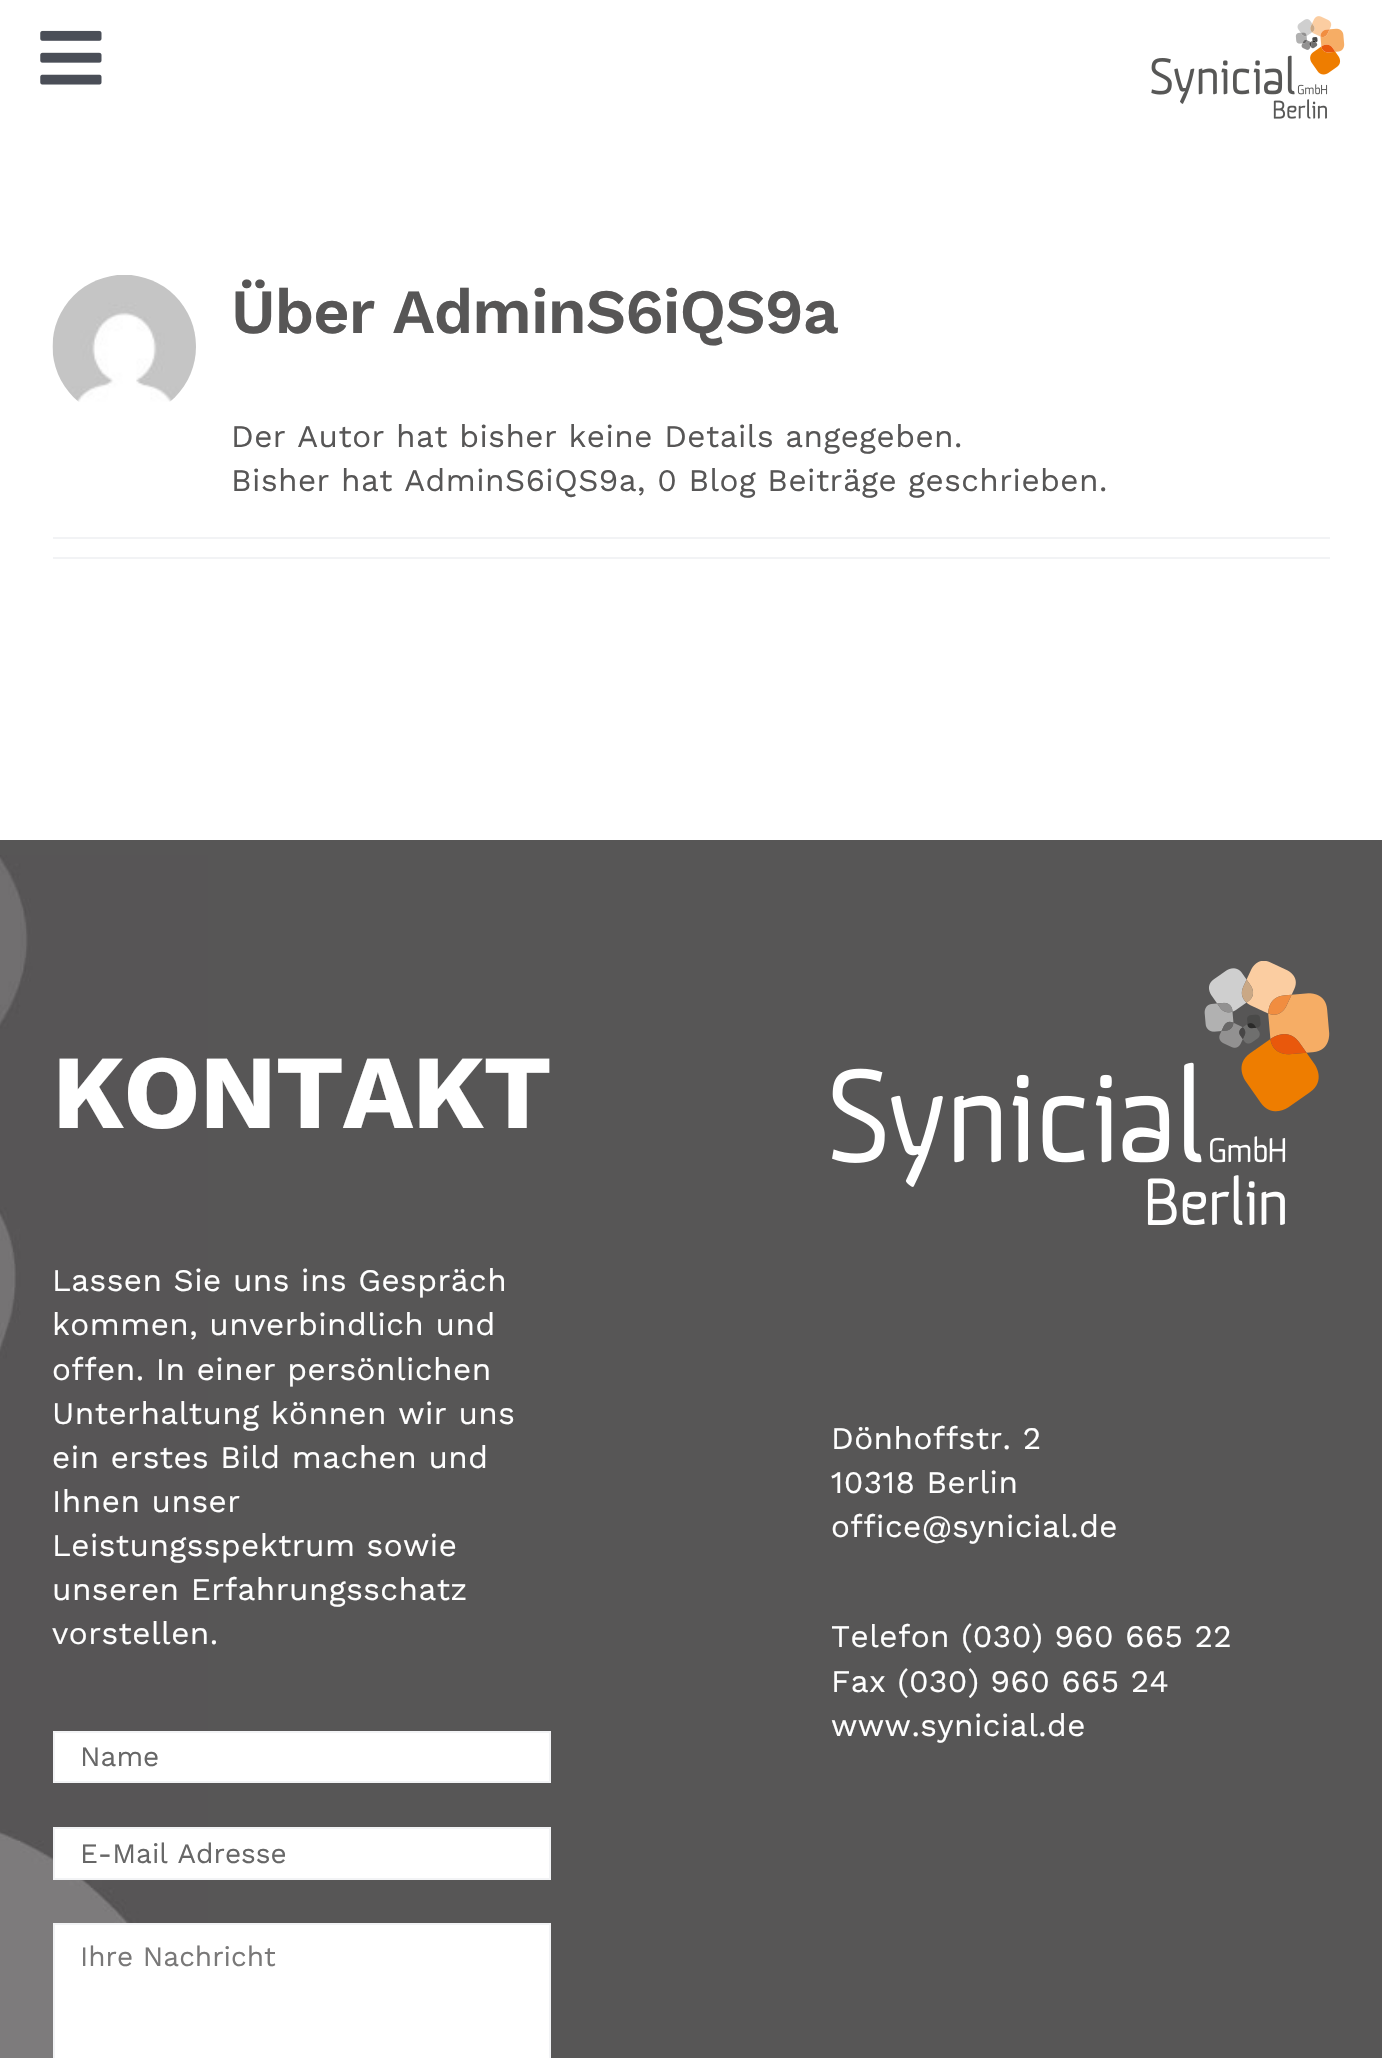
#include "include/core/SkBlurTypes.h"
#include "include/core/SkCanvas.h"
#include "include/core/SkData.h"
#include "include/core/SkFont.h"
#include "include/core/SkFontMgr.h"
#include "include/core/SkImage.h"
#include "include/core/SkMaskFilter.h"
#include "include/core/SkPaint.h"
#include "include/core/SkPathBuilder.h"
#include "include/core/SkTextBlob.h"
#include "include/effects/SkDashPathEffect.h"
#include "include/effects/SkGradientShader.h"
#include "include/utils/SkParsePath.h"

extern sk_sp<SkFontMgr> fontMgr;

void draw(SkCanvas* canvas) {
  SkPaint p;
  p.setAntiAlias(true);
  auto spacedText = [&](const char* s, float x, float y, const SkFont& font, const SkPaint& ink, float letter, float word) {
    std::vector<SkGlyphID> glyphs(font.countText(s, strlen(s), SkTextEncoding::kUTF8));
    std::vector<float> xs(glyphs.size());
    font.textToGlyphs(s, strlen(s), SkTextEncoding::kUTF8, glyphs);
    font.getXPos(glyphs, xs, x);
    float extra = 0;
    for (size_t i = 0; i < glyphs.size(); i++) {
      xs[i] += extra;
      extra += letter + word * (glyphs[i] == font.unicharToGlyph(' '));
    }
    canvas->drawTextBlob(SkTextBlob::MakeFromPosHGlyphs(glyphs, xs, y, font), 0, 0, ink);
  };
  canvas->clear(SK_ColorWHITE);
  canvas->drawImageRect(SkImages::DeferredFromEncodedData(SkData::MakeFromFileName("images/1.png")), SkRect::MakeLTRB(40, 30, 102, 85), SkSamplingOptions());
  canvas->drawImageRect(SkImages::DeferredFromEncodedData(SkData::MakeFromFileName("images/2.png")), SkRect::MakeLTRB(1151, 16, 1345, 119), SkSamplingOptions());
  canvas->drawImageRect(SkImages::DeferredFromEncodedData(SkData::MakeFromFileName("images/3.png")), SkRect::MakeLTRB(52, 275, 196, 402), SkSamplingOptions());
  p.setColor(SkColorSetRGB(242, 243, 245));
  canvas->drawRect(SkRect::MakeLTRB(53, 537, 1330, 539), p);
  canvas->drawRect(SkRect::MakeLTRB(53, 557, 1330, 559), p);
  p.setColor(SkColorSetRGB(87, 86, 86));
  canvas->drawRect(SkRect::MakeLTRB(0, 840, 1382, 2058), p);
  canvas->drawImageRect(SkImages::DeferredFromEncodedData(SkData::MakeFromFileName("images/4.png")), SkRect::MakeLTRB(0, 855, 208, 2058), SkSamplingOptions());
  p.setColor(SK_ColorWHITE);
  canvas->drawRect(SkRect::MakeLTRB(54, 1732, 550, 1782), p);
  p.setStyle(SkPaint::kStroke_Style);
  p.setStrokeWidth(2);
  p.setColor(SkColorSetRGB(242, 243, 245));
  canvas->drawRect(SkRect::MakeLTRB(54, 1732, 550, 1782), p);
  p.setStyle(SkPaint::kFill_Style);
  p.setColor(SK_ColorWHITE);
  canvas->drawRect(SkRect::MakeLTRB(54, 1828, 550, 1879), p);
  p.setStyle(SkPaint::kStroke_Style);
  p.setColor(SkColorSetRGB(242, 243, 245));
  canvas->drawRect(SkRect::MakeLTRB(54, 1828, 550, 1879), p);
  p.setStyle(SkPaint::kFill_Style);
  p.setColor(SK_ColorWHITE);
  canvas->drawRect(SkRect::MakeLTRB(54, 1924, 550, 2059), p);
  p.setStyle(SkPaint::kStroke_Style);
  p.setColor(SkColorSetRGB(242, 243, 245));
  canvas->drawRect(SkRect::MakeLTRB(54, 1924, 550, 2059), p);
  canvas->drawImageRect(SkImages::DeferredFromEncodedData(SkData::MakeFromFileName("images/5.png")), SkRect::MakeLTRB(832, 961, 1330, 1225), SkSamplingOptions());
  SkFont font1(fontMgr->matchFamilyStyle("Work Sans", SkFontStyle(600, SkFontStyle::kNormal_Width, SkFontStyle::kUpright_Slant)), 63);
  font1.setSubpixel(true);
  p.setStyle(SkPaint::kFill_Style);
  p.setColor(SkColorSetRGB(87, 86, 86));
  spacedText("Über AdminS6iQS9a", 231, 333, font1, p, -1, 0);
  SkFont font2(fontMgr->matchFamilyStyle("Work Sans", SkFontStyle::Normal()), 31.5f);
  font2.setSubpixel(true);
  spacedText("Der Autor hat bisher keine Details angegeben.", 231, 447, font2, p, 0.47f, 0);
  spacedText("Bisher hat AdminS6iQS9a, 0 Blog Beiträge geschrieben.", 231, 491, font2, p, 0.47f, 0);
  SkFont font3(fontMgr->matchFamilyStyle("Work Sans", SkFontStyle::Bold()), 105);
  font3.setSubpixel(true);
  p.setColor(SK_ColorWHITE);
  spacedText("KONTAKT", 52, 1128, font3, p, -1.5f, 0);
  spacedText("Lassen Sie uns ins Gespräch", 52, 1291, font2, p, 0.47f, 0);
  spacedText("kommen, unverbindlich und", 52, 1335, font2, p, 0.47f, 0);
  spacedText("offen. In einer persönlichen", 52, 1380, font2, p, 0.47f, 0);
  spacedText("Unterhaltung können wir uns", 52, 1424, font2, p, 0.47f, 0);
  spacedText("ein erstes Bild machen und", 52, 1468, font2, p, 0.47f, 0);
  spacedText("Ihnen unser", 52, 1512, font2, p, 0.47f, 0);
  spacedText("Leistungsspektrum sowie", 52, 1556, font2, p, 0.47f, 0);
  spacedText("unseren Erfahrungsschatz", 52, 1600, font2, p, 0.47f, 0);
  spacedText("vorstellen.", 52, 1644, font2, p, 0.47f, 0);
  SkFont font4(fontMgr->matchFamilyStyle("Work Sans", SkFontStyle::Normal()), 28);
  font4.setSubpixel(true);
  p.setColor(SkColorSetRGB(103, 103, 103));
  canvas->drawString("Name", 80, 1766, font4, p);
  canvas->drawString("E-Mail Adresse", 80, 1863, font4, p);
  p.setColor(SkColorSetRGB(121, 120, 120));
  canvas->drawString("Ihre Nachricht", 80, 1966, font4, p);
  p.setColor(SK_ColorWHITE);
  spacedText("Dönhoffstr. 2", 831, 1449, font2, p, 0.47f, 0);
  spacedText("10318 Berlin", 831, 1493, font2, p, 0.47f, 0);
  spacedText("office@synicial.de", 831, 1537, font2, p, 0.47f, 0);
  spacedText("Telefon (030) 960 665 22", 831, 1647, font2, p, 0.47f, 0);
  spacedText("Fax (030) 960 665 24", 831, 1692, font2, p, 0.47f, 0);
  spacedText("www.synicial.de", 831, 1736, font2, p, 0.47f, 0);
}
